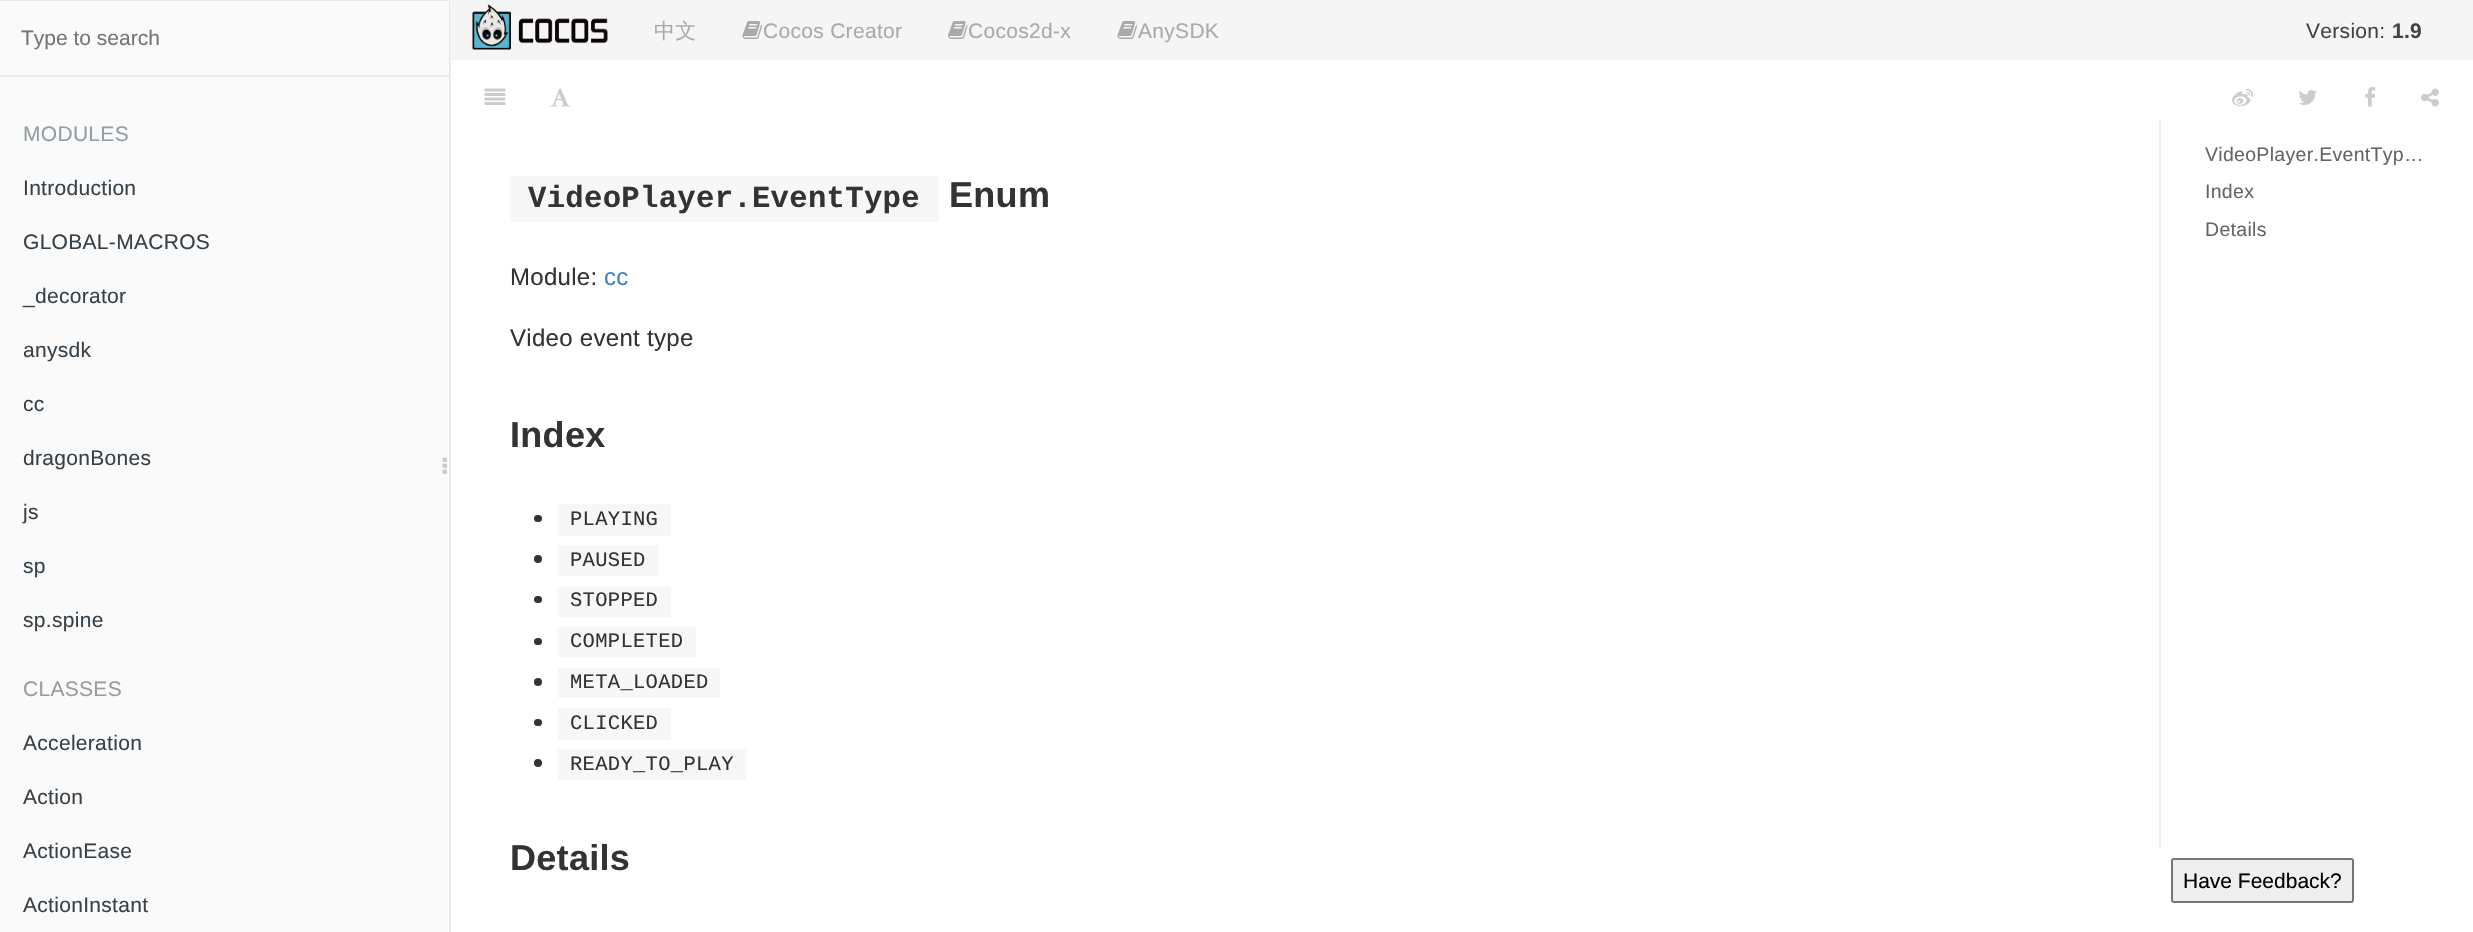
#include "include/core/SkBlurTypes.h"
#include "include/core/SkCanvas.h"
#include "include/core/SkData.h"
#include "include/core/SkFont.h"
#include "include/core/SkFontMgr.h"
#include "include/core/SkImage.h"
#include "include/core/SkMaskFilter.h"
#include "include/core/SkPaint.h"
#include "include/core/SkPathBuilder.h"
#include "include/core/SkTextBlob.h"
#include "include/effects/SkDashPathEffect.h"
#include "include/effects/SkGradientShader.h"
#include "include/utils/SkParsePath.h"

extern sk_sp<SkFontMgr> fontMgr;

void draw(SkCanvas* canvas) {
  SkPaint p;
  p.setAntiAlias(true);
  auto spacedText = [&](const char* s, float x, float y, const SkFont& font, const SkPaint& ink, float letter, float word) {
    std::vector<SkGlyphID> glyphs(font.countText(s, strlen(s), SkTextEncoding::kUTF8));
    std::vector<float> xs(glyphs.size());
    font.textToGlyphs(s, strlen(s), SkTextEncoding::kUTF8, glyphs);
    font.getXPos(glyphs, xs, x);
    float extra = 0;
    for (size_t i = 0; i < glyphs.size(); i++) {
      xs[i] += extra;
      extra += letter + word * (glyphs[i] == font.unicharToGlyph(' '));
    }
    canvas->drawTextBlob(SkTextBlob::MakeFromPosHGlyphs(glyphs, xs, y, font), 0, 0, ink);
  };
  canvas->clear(SK_ColorWHITE);
  p.setColor(SkColorSetRGB(237, 237, 237));
  canvas->drawRect(SkRect::MakeLTRB(450, 60, 451, 932), p);
  p.setColor(SkColorSetRGB(250, 250, 250));
  canvas->drawRect(SkRect::MakeLTRB(0, 1, 449, 932), p);
  p.setColor(SkColorSetRGB(232, 232, 232));
  canvas->drawRect(SkRect::MakeLTRB(449, 0, 450, 932), p);
  p.setColor(SkColorSetRGB(233, 233, 233));
  canvas->drawRect(SkRect::MakeLTRB(0, 0, 449, 1), p);
  canvas->drawRect(SkRect::MakeLTRB(0, 75, 449, 77), p);
  canvas->drawImageRect(SkImages::DeferredFromEncodedData(SkData::MakeFromFileName("images/1.png")), SkRect::MakeLTRB(442, 457, 447, 474), SkSamplingOptions());
  p.setColor(SkColorSetRGB(245, 245, 245));
  canvas->drawRect(SkRect::MakeLTRB(450, 0, 2473, 60), p);
  canvas->drawImageRect(SkImages::DeferredFromEncodedData(SkData::MakeFromFileName("images/2.png")), SkRect::MakeLTRB(472, 4, 608, 50), SkSamplingOptions());
  canvas->drawImageRect(SkImages::DeferredFromEncodedData(SkData::MakeFromFileName("images/3.png")), SkRect::MakeLTRB(742, 21, 762, 39), SkSamplingOptions());
  canvas->drawImageRect(SkImages::DeferredFromEncodedData(SkData::MakeFromFileName("images/4.png")), SkRect::MakeLTRB(948, 21, 968, 39), SkSamplingOptions());
  canvas->drawImageRect(SkImages::DeferredFromEncodedData(SkData::MakeFromFileName("images/3.png")), SkRect::MakeLTRB(1117, 21, 1137, 39), SkSamplingOptions());
  canvas->drawImageRect(SkImages::DeferredFromEncodedData(SkData::MakeFromFileName("images/5.png")), SkRect::MakeLTRB(484, 88, 506, 105), SkSamplingOptions());
  canvas->drawImageRect(SkImages::DeferredFromEncodedData(SkData::MakeFromFileName("images/6.png")), SkRect::MakeLTRB(550, 88, 570, 107), SkSamplingOptions());
  canvas->drawImageRect(SkImages::DeferredFromEncodedData(SkData::MakeFromFileName("images/7.png")), SkRect::MakeLTRB(2232, 89, 2253, 106), SkSamplingOptions());
  canvas->drawImageRect(SkImages::DeferredFromEncodedData(SkData::MakeFromFileName("images/8.png")), SkRect::MakeLTRB(2299, 90, 2317, 105), SkSamplingOptions());
  canvas->drawImageRect(SkImages::DeferredFromEncodedData(SkData::MakeFromFileName("images/9.png")), SkRect::MakeLTRB(2365, 87, 2376, 107), SkSamplingOptions());
  canvas->drawImageRect(SkImages::DeferredFromEncodedData(SkData::MakeFromFileName("images/10.png")), SkRect::MakeLTRB(2421, 88, 2439, 107), SkSamplingOptions());
  p.setColor(SkColorSetRGB(247, 247, 247));
  canvas->drawRect(SkRect::MakeLTRB(510, 176, 939, 222), p);
  p.setColor(SkColorSetRGB(51, 51, 51));
  canvas->drawRoundRect(SkRect::MakeLTRB(534, 515, 542, 522), 3.5f, 3.5f, p);
  p.setColor(SkColorSetRGB(247, 247, 247));
  canvas->drawRect(SkRect::MakeLTRB(558, 504, 671, 536), p);
  p.setColor(SkColorSetRGB(51, 51, 51));
  canvas->drawCircle(538, 559, 4, p);
  p.setColor(SkColorSetRGB(247, 247, 247));
  canvas->drawRect(SkRect::MakeLTRB(558, 545, 659, 576), p);
  p.setColor(SkColorSetRGB(51, 51, 51));
  canvas->drawRoundRect(SkRect::MakeLTRB(534, 596, 542, 603), 3.5f, 3.5f, p);
  p.setColor(SkColorSetRGB(247, 247, 247));
  canvas->drawRect(SkRect::MakeLTRB(558, 587, 671, 617), p);
  p.setColor(SkColorSetRGB(51, 51, 51));
  canvas->drawRoundRect(SkRect::MakeLTRB(534, 638, 542, 645), 3.5f, 3.5f, p);
  p.setColor(SkColorSetRGB(247, 247, 247));
  canvas->drawRect(SkRect::MakeLTRB(558, 627, 696, 657), p);
  p.setColor(SkColorSetRGB(51, 51, 51));
  canvas->drawCircle(538, 682, 4, p);
  p.setColor(SkColorSetRGB(247, 247, 247));
  canvas->drawRect(SkRect::MakeLTRB(558, 668, 720, 698), p);
  p.setColor(SkColorSetRGB(51, 51, 51));
  canvas->drawRoundRect(SkRect::MakeLTRB(534, 719, 542, 726), 3.5f, 3.5f, p);
  p.setColor(SkColorSetRGB(247, 247, 247));
  canvas->drawRect(SkRect::MakeLTRB(558, 708, 671, 740), p);
  p.setColor(SkColorSetRGB(51, 51, 51));
  canvas->drawCircle(538, 763, 4, p);
  p.setColor(SkColorSetRGB(247, 247, 247));
  canvas->drawRect(SkRect::MakeLTRB(558, 749, 746, 780), p);
  p.setColor(SkColorSetRGB(236, 236, 236));
  canvas->drawRect(SkRect::MakeLTRB(2159, 120, 2161, 849), p);
  p.setColor(SkColorSetRGB(239, 239, 239));
  canvas->drawRoundRect(SkRect::MakeLTRB(2172, 859, 2353, 902), 2, 2, p);
  p.setStyle(SkPaint::kStroke_Style);
  p.setStrokeWidth(2);
  p.setColor(SkColorSetRGB(118, 118, 118));
  canvas->drawRoundRect(SkRect::MakeLTRB(2172, 859, 2353, 902), 2, 2, p);
  SkFont font1(fontMgr->matchFamilyStyle("Liberation Sans", SkFontStyle::Normal()), 21);
  font1.setSubpixel(true);
  p.setStyle(SkPaint::kFill_Style);
  p.setColor(SkColorSetRGB(117, 117, 117));
  canvas->drawString("Type to search", 21, 45, font1, p);
  p.setColor(SkColorSetRGB(147, 157, 163));
  spacedText("MODULES", 23, 141, font1, p, 0.3f, 0);
  p.setColor(SkColorSetRGB(54, 65, 73));
  spacedText("Introduction", 23, 195, font1, p, 0.3f, 0);
  spacedText("GLOBAL-MACROS", 23, 249, font1, p, 0.3f, 0);
  spacedText("_decorator", 23, 303, font1, p, 0.3f, 0);
  spacedText("anysdk", 23, 357, font1, p, 0.3f, 0);
  spacedText("cc", 23, 411, font1, p, 0.3f, 0);
  spacedText("dragonBones", 23, 465, font1, p, 0.3f, 0);
  spacedText("js", 23, 519, font1, p, 0.3f, 0);
  spacedText("sp", 23, 573, font1, p, 0.3f, 0);
  spacedText("sp.spine", 23, 627, font1, p, 0.3f, 0);
  p.setColor(SkColorSetRGB(147, 157, 163));
  spacedText("CLASSES", 23, 696, font1, p, 0.3f, 0);
  p.setColor(SkColorSetRGB(54, 65, 73));
  spacedText("Acceleration", 23, 750, font1, p, 0.3f, 0);
  spacedText("Action", 23, 804, font1, p, 0.3f, 0);
  spacedText("ActionEase", 23, 858, font1, p, 0.3f, 0);
  spacedText("ActionInstant", 23, 912, font1, p, 0.3f, 0);
  SkFont font2(fontMgr->matchFamilyStyle("WenQuanYi Zen Hei", SkFontStyle(500, SkFontStyle::kNormal_Width, SkFontStyle::kUpright_Slant)), 21);
  font2.setSubpixel(true);
  p.setColor(SkColorSetRGB(170, 170, 170));
  spacedText("中文", 654, 38, font2, p, 0.3f, 0);
  spacedText("Cocos Creator", 763, 38, font1, p, 0.3f, 0);
  spacedText("Cocos2d-x", 968, 38, font1, p, 0.3f, 0);
  spacedText("AnySDK", 1138, 38, font1, p, 0.3f, 0);
  p.setColor(SkColorSetRGB(68, 68, 68));
  spacedText("Version:", 2306, 38, font1, p, 0.3f, 0);
  SkFont font3(fontMgr->matchFamilyStyle("Liberation Sans", SkFontStyle::Bold()), 21);
  font3.setSubpixel(true);
  spacedText("1.9", 2392, 38, font3, p, 0.3f, 0);
  SkFont font4(fontMgr->matchFamilyStyle("Liberation Mono", SkFontStyle::Bold()), 30.6f);
  font4.setSubpixel(true);
  p.setColor(SkColorSetRGB(51, 51, 51));
  spacedText("VideoPlayer.EventType", 528, 207, font4, p, 0.3f, 0);
  SkFont font5(fontMgr->matchFamilyStyle("Liberation Sans", SkFontStyle::Bold()), 36);
  font5.setSubpixel(true);
  spacedText("Enum", 949, 207, font5, p, 0.3f, 0);
  SkFont font6(fontMgr->matchFamilyStyle("Liberation Sans", SkFontStyle::Normal()), 24);
  font6.setSubpixel(true);
  spacedText("Module:", 510, 285, font6, p, 0.3f, 0);
  p.setColor(SkColorSetRGB(65, 131, 196));
  spacedText("cc", 604, 285, font6, p, 0.3f, 0);
  p.setColor(SkColorSetRGB(51, 51, 51));
  spacedText("Video event type", 510, 346, font6, p, 0.3f, 0);
  spacedText("Index", 510, 447, font5, p, 0.3f, 0);
  SkFont font7(fontMgr->matchFamilyStyle("Liberation Mono", SkFontStyle::Normal()), 20.5f);
  font7.setSubpixel(true);
  spacedText("PLAYING", 570, 525, font7, p, 0.3f, 0);
  spacedText("PAUSED", 570, 566, font7, p, 0.3f, 0);
  spacedText("STOPPED", 570, 606, font7, p, 0.3f, 0);
  spacedText("COMPLETED", 570, 647, font7, p, 0.3f, 0);
  spacedText("META_LOADED", 570, 688, font7, p, 0.3f, 0);
  spacedText("CLICKED", 570, 729, font7, p, 0.3f, 0);
  spacedText("READY_TO_PLAY", 570, 770, font7, p, 0.3f, 0);
  spacedText("Details", 510, 870, font5, p, 0.3f, 0);
  SkFont font8(fontMgr->matchFamilyStyle("Liberation Sans", SkFontStyle::Normal()), 19.5f);
  font8.setSubpixel(true);
  p.setColor(SkColorSetRGB(101, 101, 101));
  spacedText("VideoPlayer.EventTyp…", 2205, 161, font8, p, 0.3f, 0);
  spacedText("Index", 2205, 198, font8, p, 0.3f, 0);
  spacedText("Details", 2205, 236, font8, p, 0.3f, 0);
  p.setColor(SK_ColorBLACK);
  canvas->drawString("Have Feedback?", 2183, 888, font1, p);
}
